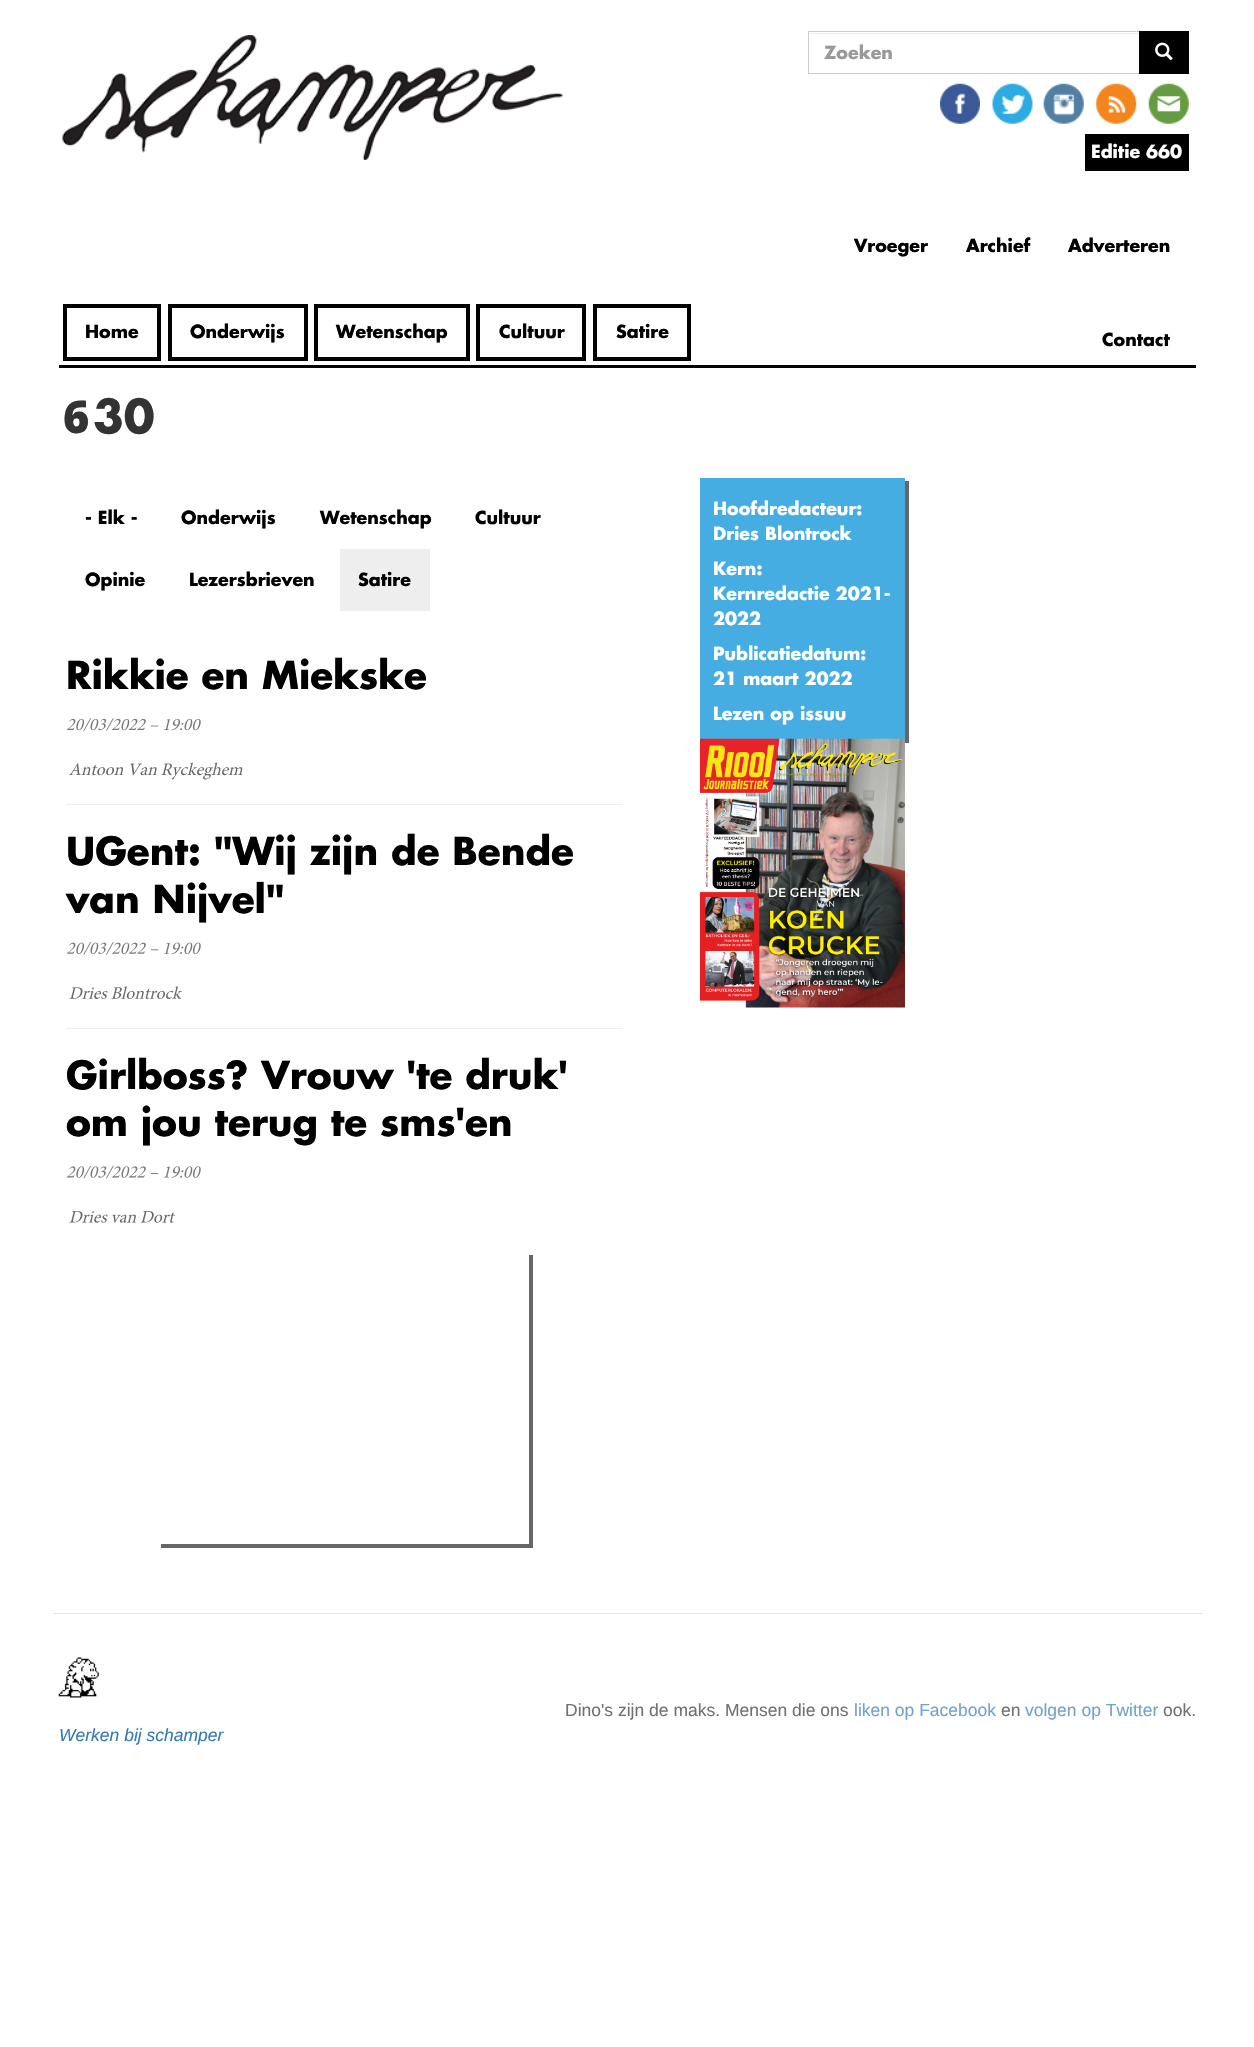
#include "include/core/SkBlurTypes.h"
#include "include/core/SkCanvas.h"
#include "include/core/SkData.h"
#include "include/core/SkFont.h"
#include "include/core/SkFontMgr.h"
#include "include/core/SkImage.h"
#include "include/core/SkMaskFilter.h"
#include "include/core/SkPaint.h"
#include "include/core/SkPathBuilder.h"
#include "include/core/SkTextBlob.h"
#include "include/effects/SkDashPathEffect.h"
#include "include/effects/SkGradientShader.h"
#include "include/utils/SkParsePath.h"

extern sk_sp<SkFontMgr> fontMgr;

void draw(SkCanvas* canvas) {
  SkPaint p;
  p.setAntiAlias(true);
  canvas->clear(SK_ColorWHITE);
  p.setColor(SK_ColorBLACK);
  canvas->drawRect(SkRect::MakeLTRB(59, 365, 1196, 368), p);
  canvas->drawImageRect(SkImages::DeferredFromEncodedData(SkData::MakeFromFileName("images/1.png")), SkRect::MakeLTRB(62, 35, 563, 160), SkSamplingOptions());
  p.setStyle(SkPaint::kStroke_Style);
  p.setStrokeWidth(4);
  canvas->drawRect(SkRect::MakeLTRB(65, 306, 159, 359), p);
  canvas->drawRect(SkRect::MakeLTRB(170, 306, 306, 359), p);
  canvas->drawRect(SkRect::MakeLTRB(316, 306, 468, 359), p);
  canvas->drawRect(SkRect::MakeLTRB(478, 306, 584, 359), p);
  canvas->drawRect(SkRect::MakeLTRB(595, 306, 689, 359), p);
  p.setStyle(SkPaint::kFill_Style);
  p.setColor(SkColorSetRGB(236, 236, 236));
  canvas->drawRect(SkRect::MakeLTRB(809, 33, 1139, 34), p);
  p.setStyle(SkPaint::kStroke_Style);
  p.setStrokeWidth(1);
  p.setColor(SkColorSetRGB(204, 204, 204));
  canvas->drawRect(SkRect::MakeLTRB(808.5f, 31.5f, 1139.5f, 73.5f), p);
  p.setStyle(SkPaint::kFill_Style);
  p.setColor(SK_ColorBLACK);
  canvas->drawRect(SkRect::MakeLTRB(1139, 31, 1189, 74), p);
  canvas->drawImageRect(SkImages::DeferredFromEncodedData(SkData::MakeFromFileName("images/2.png")), SkRect::MakeLTRB(1155, 42, 1173, 61), SkSamplingOptions());
  canvas->drawImageRect(SkImages::DeferredFromEncodedData(SkData::MakeFromFileName("images/3.png")), SkRect::MakeLTRB(940, 83, 980, 124), SkSamplingOptions());
  canvas->drawImageRect(SkImages::DeferredFromEncodedData(SkData::MakeFromFileName("images/4.png")), SkRect::MakeLTRB(992, 83, 1033, 124), SkSamplingOptions());
  canvas->drawImageRect(SkImages::DeferredFromEncodedData(SkData::MakeFromFileName("images/5.png")), SkRect::MakeLTRB(1043, 83, 1084, 124), SkSamplingOptions());
  canvas->drawImageRect(SkImages::DeferredFromEncodedData(SkData::MakeFromFileName("images/6.png")), SkRect::MakeLTRB(1096, 83, 1137, 124), SkSamplingOptions());
  canvas->drawImageRect(SkImages::DeferredFromEncodedData(SkData::MakeFromFileName("images/7.png")), SkRect::MakeLTRB(1148, 83, 1189, 124), SkSamplingOptions());
  canvas->drawRect(SkRect::MakeLTRB(1085, 134, 1189, 171), p);
  p.setColor(SkColorSetRGB(238, 238, 238));
  canvas->drawRect(SkRect::MakeLTRB(340, 549, 430, 611), p);
  canvas->drawRect(SkRect::MakeLTRB(66, 804, 623, 805), p);
  canvas->drawImageRect(SkImages::DeferredFromEncodedData(SkData::MakeFromFileName("images/8.png")), SkRect::MakeLTRB(66, 718, 201, 731), SkSamplingOptions());
  canvas->drawImageRect(SkImages::DeferredFromEncodedData(SkData::MakeFromFileName("images/9.png")), SkRect::MakeLTRB(69, 762, 243, 780), SkSamplingOptions());
  canvas->drawRect(SkRect::MakeLTRB(66, 1028, 623, 1029), p);
  canvas->drawImageRect(SkImages::DeferredFromEncodedData(SkData::MakeFromFileName("images/10.png")), SkRect::MakeLTRB(66, 942, 201, 955), SkSamplingOptions());
  canvas->drawImageRect(SkImages::DeferredFromEncodedData(SkData::MakeFromFileName("images/11.png")), SkRect::MakeLTRB(69, 986, 183, 999), SkSamplingOptions());
  canvas->drawImageRect(SkImages::DeferredFromEncodedData(SkData::MakeFromFileName("images/12.png")), SkRect::MakeLTRB(66, 1165, 201, 1179), SkSamplingOptions());
  canvas->drawImageRect(SkImages::DeferredFromEncodedData(SkData::MakeFromFileName("images/13.png")), SkRect::MakeLTRB(69, 1211, 175, 1223), SkSamplingOptions());
  p.setColor(SkColorSetRGB(102, 102, 102));
  canvas->drawPath(SkPathBuilder().moveTo(704, 739).lineTo(704, 743).lineTo(909, 743).lineTo(909, 481).lineTo(905, 481).lineTo(905, 739).close().detach(), p);
  p.setColor(SkColorSetRGB(70, 173, 226));
  canvas->drawRect(SkRect::MakeLTRB(700, 478, 905, 739), p);
  canvas->drawImageRect(SkImages::DeferredFromEncodedData(SkData::MakeFromFileName("images/14.png")), SkRect::MakeLTRB(700, 738, 905, 1008), SkSamplingOptions());
  p.setColor(SkColorSetRGB(102, 102, 102));
  canvas->drawPath(SkPathBuilder().moveTo(161, 1544).lineTo(161, 1548).lineTo(533, 1548).lineTo(533, 1255).lineTo(529, 1255).lineTo(529, 1544).close().detach(), p);
  p.setColor(SkColorSetRGB(229, 229, 229));
  canvas->drawRect(SkRect::MakeLTRB(53, 1613, 1203, 1614), p);
  canvas->drawImageRect(SkImages::DeferredFromEncodedData(SkData::MakeFromFileName("images/15.png")), SkRect::MakeLTRB(58, 1657, 99, 1698), SkSamplingOptions());
  SkFont font1(fontMgr->matchFamilyStyle("Futura", SkFontStyle::Bold()), 17.5f);
  font1.setSubpixel(true);
  p.setColor(SK_ColorBLACK);
  canvas->drawString("Home", 85, 338, font1, p);
  canvas->drawString("Onderwijs", 190, 338, font1, p);
  canvas->drawString("Wetenschap", 336, 338, font1, p);
  canvas->drawString("Cultuur", 499, 338, font1, p);
  canvas->drawString("Satire", 616, 338, font1, p);
  p.setColor(SkColorSetRGB(153, 153, 153));
  canvas->drawString("Zoeken", 824, 59, font1, p);
  p.setColor(SK_ColorWHITE);
  canvas->drawString("Editie 660", 1091, 158, font1, p);
  p.setColor(SK_ColorBLACK);
  canvas->drawString("Vroeger", 854, 252, font1, p);
  canvas->drawString("Archief", 966, 252, font1, p);
  canvas->drawString("Adverteren", 1068, 252, font1, p);
  canvas->drawString("Contact", 1102, 346, font1, p);
  SkFont font2(fontMgr->matchFamilyStyle("Noto Sans", SkFontStyle(900, SkFontStyle::kNormal_Width, SkFontStyle::kUpright_Slant)), 45);
  font2.setSubpixel(true);
  p.setColor(SkColorSetRGB(51, 51, 51));
  canvas->drawString("6", 63, 433, font2, p);
  SkFont font3(fontMgr->matchFamilyStyle("Futura", SkFontStyle::Bold()), 45);
  font3.setSubpixel(true);
  canvas->drawString("30", 93, 433, font3, p);
  p.setColor(SK_ColorBLACK);
  canvas->drawString("- Elk -", 85, 524, font1, p);
  canvas->drawString("Onderwijs", 181, 524, font1, p);
  canvas->drawString("Wetenschap", 320, 524, font1, p);
  canvas->drawString("Cultuur", 475, 524, font1, p);
  canvas->drawString("Opinie", 85, 586, font1, p);
  canvas->drawString("Lezersbrieven", 189, 586, font1, p);
  canvas->drawString("Satire", 358, 586, font1, p);
  SkFont font4(fontMgr->matchFamilyStyle("Futura", SkFontStyle::Bold()), 37.5f);
  font4.setSubpixel(true);
  canvas->drawString("Rikkie en Miekske", 66, 689, font4, p);
  canvas->drawString("UGent: \"Wij zijn de Bende", 66, 865, font4, p);
  canvas->drawString("van Nijvel\"", 66, 913, font4, p);
  canvas->drawString("Girlboss? Vrouw 'te druk'", 66, 1089, font4, p);
  canvas->drawString("om jou terug te sms'en", 66, 1136, font4, p);
  p.setColor(SK_ColorWHITE);
  canvas->drawString("Hoofdredacteur:", 713, 515, font1, p);
  canvas->drawString("Dries Blontrock", 713, 540, font1, p);
  canvas->drawString("Kern:", 713, 575, font1, p);
  canvas->drawString("Kernredactie 2021-", 713, 600, font1, p);
  canvas->drawString("2022", 713, 625, font1, p);
  canvas->drawString("Publicatiedatum:", 713, 660, font1, p);
  canvas->drawString("21 maart 2022", 713, 685, font1, p);
  canvas->drawString("Lezen op issuu", 713, 720, font1, p);
  SkFont font5(fontMgr->matchFamilyStyle("Liberation Sans", SkFontStyle::Normal()), 17.5f);
  font5.setSubpixel(true);
  p.setColor(SkColorSetRGB(112, 112, 112));
  canvas->drawString("Dino's zijn de maks. Mensen die ons", 565, 1716, font5, p);
  p.setColor(SkColorSetRGB(112, 162, 205));
  canvas->drawString("liken op Facebook", 854, 1716, font5, p);
  p.setColor(SkColorSetRGB(112, 112, 112));
  canvas->drawString("en", 1001, 1716, font5, p);
  p.setColor(SkColorSetRGB(112, 162, 205));
  canvas->drawString("volgen op Twitter", 1025, 1716, font5, p);
  p.setColor(SkColorSetRGB(112, 112, 112));
  canvas->drawString("ook.", 1163, 1716, font5, p);
  SkFont font6(fontMgr->matchFamilyStyle("Liberation Sans", SkFontStyle::Italic()), 17.5f);
  font6.setSubpixel(true);
  p.setColor(SkColorSetRGB(51, 122, 183));
  canvas->drawString("Werken bij schamper", 59, 1741, font6, p);
}
